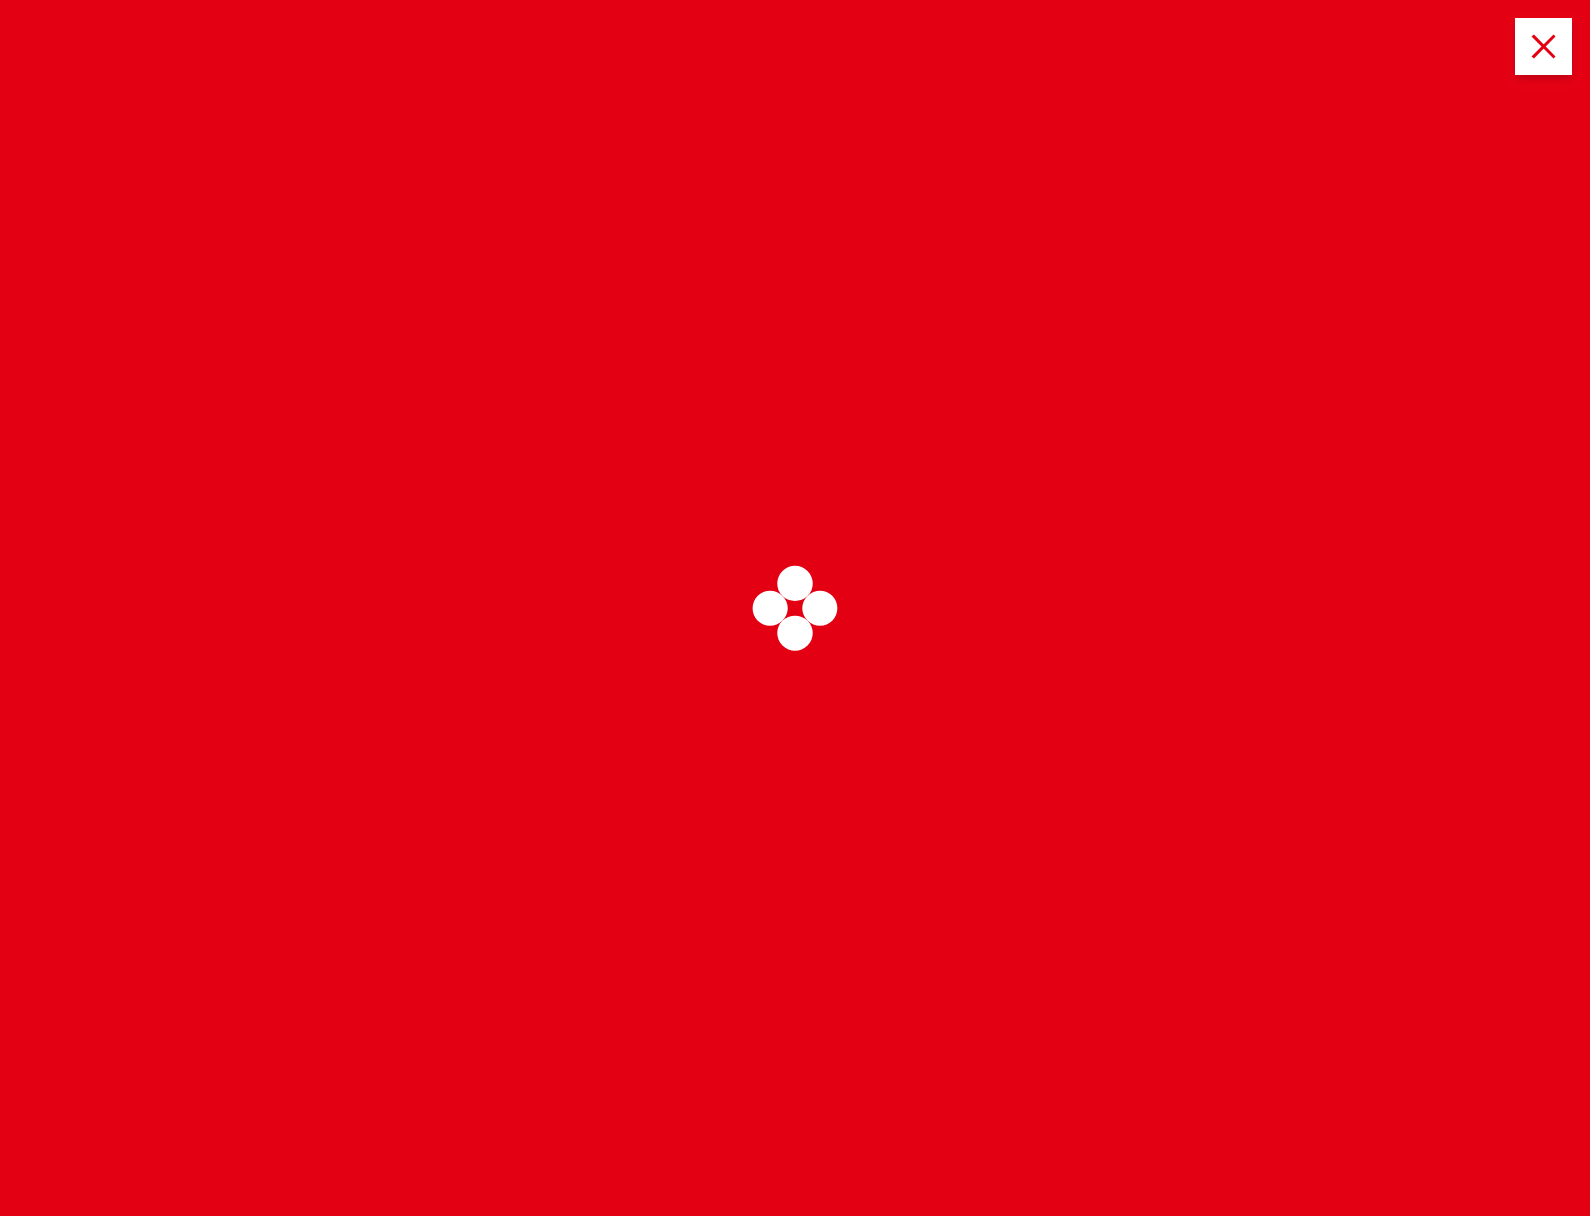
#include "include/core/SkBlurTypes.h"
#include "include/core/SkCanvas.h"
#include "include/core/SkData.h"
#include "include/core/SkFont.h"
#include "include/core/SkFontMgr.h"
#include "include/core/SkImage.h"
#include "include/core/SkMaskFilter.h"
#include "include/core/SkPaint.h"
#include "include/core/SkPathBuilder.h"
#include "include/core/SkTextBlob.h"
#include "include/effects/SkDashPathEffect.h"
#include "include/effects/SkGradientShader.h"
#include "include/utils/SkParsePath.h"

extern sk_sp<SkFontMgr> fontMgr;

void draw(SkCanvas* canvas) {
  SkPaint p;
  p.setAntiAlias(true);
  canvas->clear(SkColorSetRGB(228, 0, 19));
  p.setColor(SkColorSetARGB(51, 7, 10, 25));
  p.setMaskFilter(SkMaskFilter::MakeBlur(kNormal_SkBlurStyle, 4));
  canvas->drawRect(SkRect::MakeLTRB(1517, 24, 1571, 78), p);
  p.setMaskFilter(nullptr);
  p.setColor(SK_ColorWHITE);
  canvas->drawRect(SkRect::MakeLTRB(1515, 18, 1572, 75), p);
  p.setColor(SkColorSetRGB(228, 0, 19));
  canvas->drawPath(SkPathBuilder().moveTo(1531.5f, 56.5f).lineTo(1553.5f, 34.5f).lineTo(1555.5f, 36.5f).lineTo(1534, 58.5f).close().detach(), p);
  canvas->drawPath(SkPathBuilder().moveTo(1553.5f, 58.5f).lineTo(1531.5f, 36.5f).lineTo(1534, 34.5f).lineTo(1555.5f, 56.5f).close().detach(), p);
  p.setColor(SK_ColorWHITE);
  canvas->drawPath(SkPathBuilder().moveTo(807.5f, 571).cubicTo(814.5f, 578, 814.5f, 589, 807.5f, 596).cubicTo(800.5f, 602.5f, 789.5f, 602.5f, 782.5f, 596).cubicTo(775.5f, 589, 775.5f, 578, 782.5f, 571).cubicTo(789.5f, 564, 800.5f, 564, 807.5f, 571).close().detach(), p);
  canvas->drawPath(SkPathBuilder().moveTo(782.5f, 596).cubicTo(789.5f, 602.5f, 789.5f, 614, 782.5f, 620.5f).cubicTo(775.5f, 627.5f, 764.5f, 627.5f, 757.5f, 620.5f).cubicTo(751, 614, 751, 602.5f, 757.5f, 596).cubicTo(764.5f, 589, 775.5f, 589, 782.5f, 596).close().detach(), p);
  canvas->drawPath(SkPathBuilder().moveTo(832.5f, 596).cubicTo(839, 602.5f, 839, 614, 832.5f, 620.5f).cubicTo(825.5f, 627.5f, 814.5f, 627.5f, 807.5f, 620.5f).cubicTo(800.5f, 614, 800.5f, 602.5f, 807.5f, 596).cubicTo(814.5f, 589, 825.5f, 589, 832.5f, 596).close().detach(), p);
  canvas->drawPath(SkPathBuilder().moveTo(807.5f, 620.5f).cubicTo(814.5f, 627.5f, 814.5f, 638.5f, 807.5f, 645.5f).cubicTo(800.5f, 652.5f, 789.5f, 652.5f, 782.5f, 645.5f).cubicTo(775.5f, 638.5f, 775.5f, 627.5f, 782.5f, 620.5f).cubicTo(789.5f, 614, 800.5f, 614, 807.5f, 620.5f).close().detach(), p);
}
